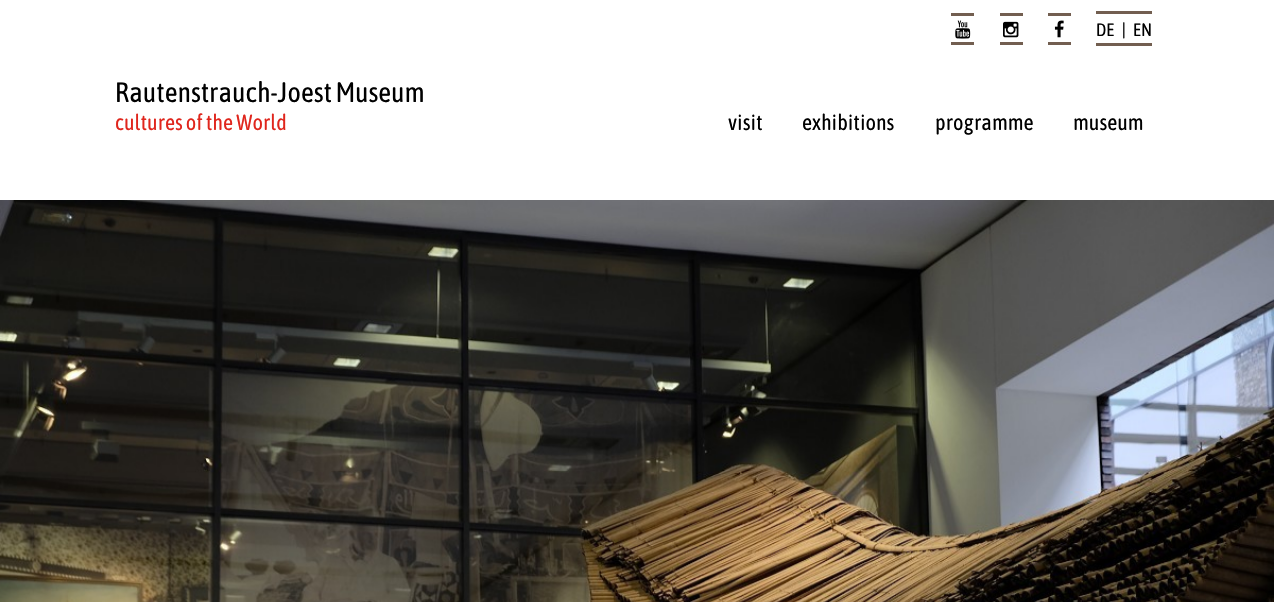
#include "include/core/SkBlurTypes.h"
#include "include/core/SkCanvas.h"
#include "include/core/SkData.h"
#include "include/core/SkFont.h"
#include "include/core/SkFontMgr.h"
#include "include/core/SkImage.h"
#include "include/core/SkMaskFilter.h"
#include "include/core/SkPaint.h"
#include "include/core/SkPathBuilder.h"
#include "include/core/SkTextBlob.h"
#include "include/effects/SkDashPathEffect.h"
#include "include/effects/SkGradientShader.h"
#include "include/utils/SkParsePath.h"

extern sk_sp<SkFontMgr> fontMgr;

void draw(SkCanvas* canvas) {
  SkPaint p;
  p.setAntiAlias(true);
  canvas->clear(SK_ColorWHITE);
  p.setColor(SkColorSetRGB(114, 94, 80));
  canvas->drawRect(SkRect::MakeLTRB(951, 13, 974, 16), p);
  canvas->drawRect(SkRect::MakeLTRB(951, 42, 974, 45), p);
  canvas->drawImageRect(SkImages::DeferredFromEncodedData(SkData::MakeFromFileName("images/1.png")), SkRect::MakeLTRB(955, 20, 971, 39), SkSamplingOptions());
  canvas->drawRect(SkRect::MakeLTRB(1000, 13, 1023, 16), p);
  canvas->drawRect(SkRect::MakeLTRB(1000, 42, 1023, 45), p);
  canvas->drawImageRect(SkImages::DeferredFromEncodedData(SkData::MakeFromFileName("images/2.png")), SkRect::MakeLTRB(1003, 21, 1019, 38), SkSamplingOptions());
  canvas->drawRect(SkRect::MakeLTRB(1048, 13, 1071, 16), p);
  canvas->drawRect(SkRect::MakeLTRB(1048, 42, 1071, 45), p);
  canvas->drawImageRect(SkImages::DeferredFromEncodedData(SkData::MakeFromFileName("images/3.png")), SkRect::MakeLTRB(1054, 20, 1064, 38), SkSamplingOptions());
  canvas->drawRect(SkRect::MakeLTRB(1096, 11, 1152, 14), p);
  canvas->drawRect(SkRect::MakeLTRB(1096, 43, 1152, 46), p);
  canvas->drawImageRect(SkImages::DeferredFromEncodedData(SkData::MakeFromFileName("images/4.png")), SkRect::MakeLTRB(0, 200, 1274, 602), SkSamplingOptions());
  SkFont font1(fontMgr->matchFamilyStyle("Asap Condensed", SkFontStyle::Normal()), 18);
  font1.setSubpixel(true);
  p.setColor(SK_ColorBLACK);
  canvas->drawString("DE   |   EN", 1096, 36, font1, p);
  SkFont font2(fontMgr->matchFamilyStyle("Asap Condensed", SkFontStyle::Normal()), 28);
  font2.setSubpixel(true);
  canvas->drawString("Rautenstrauch-Joest Museum", 115, 102, font2, p);
  SkFont font3(fontMgr->matchFamilyStyle("Asap Condensed", SkFontStyle::Normal()), 22);
  font3.setSubpixel(true);
  p.setColor(SkColorSetRGB(224, 38, 29));
  canvas->drawString("cultures of the World", 115, 130, font3, p);
  p.setColor(SK_ColorBLACK);
  canvas->drawString("visit", 728, 130, font3, p);
  canvas->drawString("exhibitions", 802, 130, font3, p);
  canvas->drawString("programme", 935, 130, font3, p);
  canvas->drawString("museum", 1073, 130, font3, p);
}
